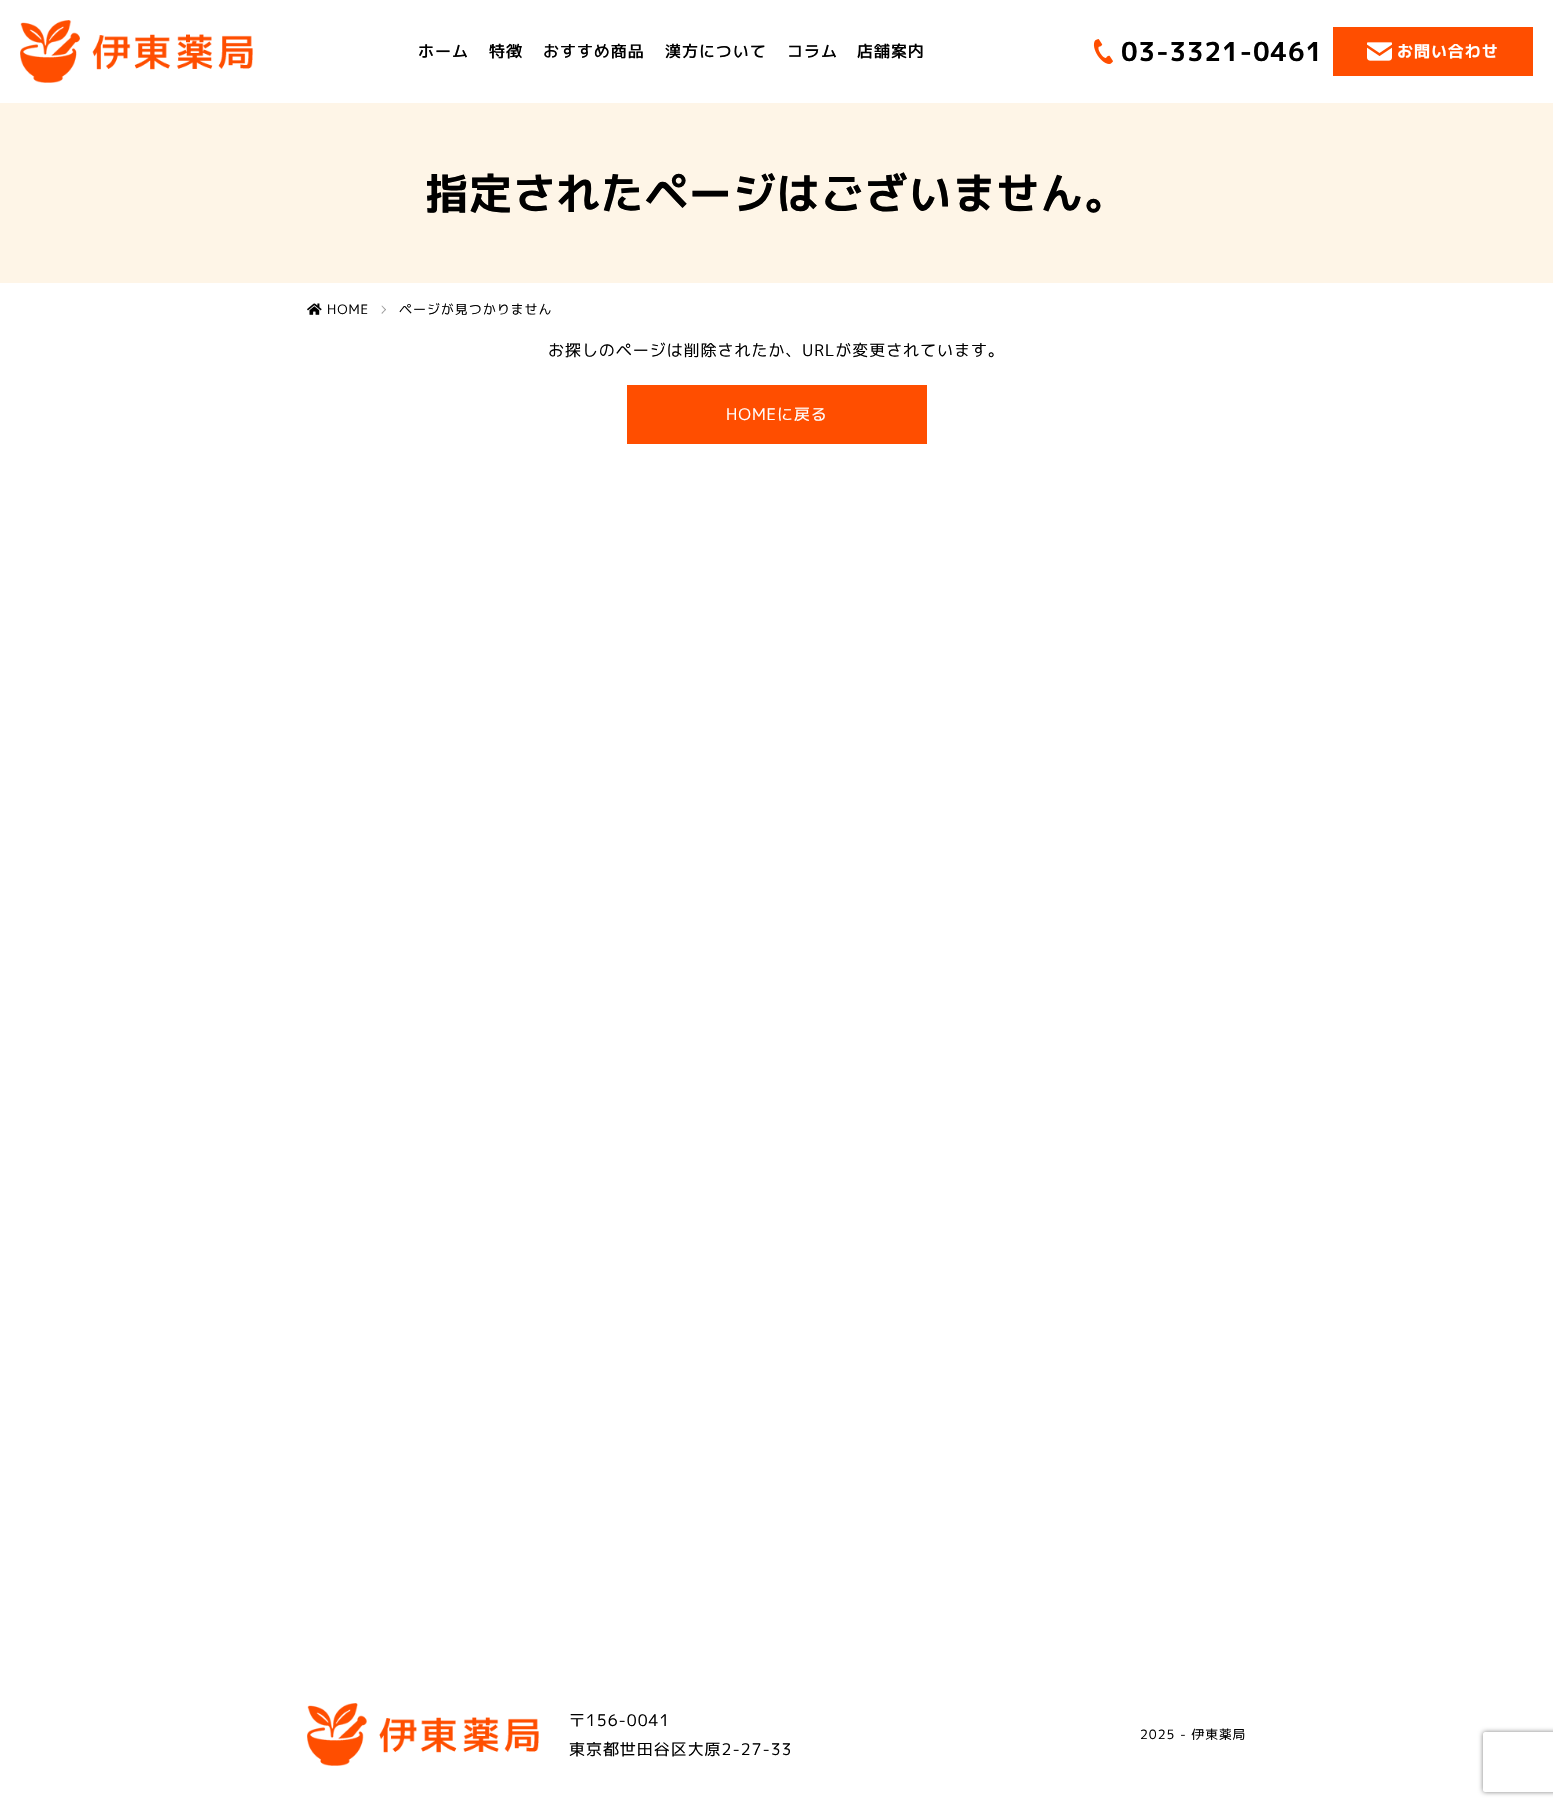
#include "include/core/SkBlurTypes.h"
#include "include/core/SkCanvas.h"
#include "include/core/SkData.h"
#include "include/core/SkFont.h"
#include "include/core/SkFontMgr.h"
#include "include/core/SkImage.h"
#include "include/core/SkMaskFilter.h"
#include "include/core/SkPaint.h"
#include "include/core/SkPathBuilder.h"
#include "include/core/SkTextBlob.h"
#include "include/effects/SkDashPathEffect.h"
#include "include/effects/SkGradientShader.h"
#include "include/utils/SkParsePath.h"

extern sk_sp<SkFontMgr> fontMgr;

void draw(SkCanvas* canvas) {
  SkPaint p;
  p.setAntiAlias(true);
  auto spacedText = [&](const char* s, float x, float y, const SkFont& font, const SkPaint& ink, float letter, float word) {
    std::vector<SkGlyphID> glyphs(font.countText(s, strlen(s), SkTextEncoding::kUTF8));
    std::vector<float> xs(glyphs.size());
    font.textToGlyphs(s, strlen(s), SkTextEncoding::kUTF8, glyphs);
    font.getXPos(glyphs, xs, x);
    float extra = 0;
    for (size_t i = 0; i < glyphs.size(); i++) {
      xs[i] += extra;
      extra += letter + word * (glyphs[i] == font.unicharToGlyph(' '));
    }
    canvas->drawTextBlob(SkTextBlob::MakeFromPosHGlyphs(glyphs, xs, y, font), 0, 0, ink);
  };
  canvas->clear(SK_ColorWHITE);
  canvas->drawImageRect(SkImages::DeferredFromEncodedData(SkData::MakeFromFileName("images/1.png")), SkRect::MakeLTRB(20, 20, 253, 83), SkSamplingOptions());
  canvas->drawImageRect(SkImages::DeferredFromEncodedData(SkData::MakeFromFileName("images/2.png")), SkRect::MakeLTRB(1093, 39, 1113, 64), SkSamplingOptions());
  p.setColor(SkColorSetRGB(255, 78, 0));
  canvas->drawRect(SkRect::MakeLTRB(1333, 27, 1533, 76), p);
  canvas->drawImageRect(SkImages::DeferredFromEncodedData(SkData::MakeFromFileName("images/3.png")), SkRect::MakeLTRB(1367, 42, 1392, 61), SkSamplingOptions());
  p.setColor(SkColorSetRGB(254, 245, 231));
  canvas->drawRect(SkRect::MakeLTRB(0, 103, 1553, 283), p);
  canvas->drawImageRect(SkImages::DeferredFromEncodedData(SkData::MakeFromFileName("images/4.png")), SkRect::MakeLTRB(307, 303, 322, 315), SkSamplingOptions());
  p.setColor(SkColorSetRGB(153, 153, 153));
  canvas->drawPath(SkPathBuilder().moveTo(381.5f, 306).lineTo(382, 305.5f).lineTo(386, 309.5f).lineTo(385.5f, 310.5f).close().detach(), p);
  canvas->drawPath(SkPathBuilder().moveTo(381.5f, 313).lineTo(385.5f, 309).lineTo(386, 309.5f).lineTo(382, 314).close().detach(), p);
  p.setColor(SkColorSetRGB(255, 78, 0));
  canvas->drawRect(SkRect::MakeLTRB(627, 385, 927, 444), p);
  canvas->drawImageRect(SkImages::DeferredFromEncodedData(SkData::MakeFromFileName("images/5.png")), SkRect::MakeLTRB(307, 1703, 539, 1766), SkSamplingOptions());
  canvas->save();
  canvas->clipPath(SkPathBuilder(SkPathFillType::kEvenOdd).moveTo(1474, 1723).lineTo(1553, 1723).lineTo(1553, 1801).lineTo(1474, 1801).close().moveTo(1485, 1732).lineTo(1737, 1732).cubicTo(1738, 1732, 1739, 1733, 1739, 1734).lineTo(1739, 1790).cubicTo(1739, 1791, 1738, 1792, 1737, 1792).lineTo(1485, 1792).cubicTo(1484, 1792, 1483, 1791, 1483, 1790).lineTo(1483, 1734).cubicTo(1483, 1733, 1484, 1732, 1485, 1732).close().detach(), true);
  p.setColor(SkColorSetRGB(128, 128, 128));
  p.setMaskFilter(SkMaskFilter::MakeBlur(kNormal_SkBlurStyle, 2.5f));
  canvas->drawRoundRect(SkRect::MakeLTRB(1483, 1732, 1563, 1792), 2, 2, p);
  p.setMaskFilter(nullptr);
  canvas->restore();
  SkFont font1(fontMgr->matchFamilyStyle("M PLUS 1p", SkFontStyle(500, SkFontStyle::kNormal_Width, SkFontStyle::kUpright_Slant)), 16);
  font1.setSubpixel(true);
  p.setColor(SK_ColorBLACK);
  spacedText("ホーム", 418, 57, font1, p, 0.95f, 0);
  spacedText("特徴", 489, 57, font1, p, 0.95f, 0);
  spacedText("おすすめ商品", 543, 57, font1, p, 0.95f, 0);
  spacedText("漢方について", 665, 57, font1, p, 0.95f, 0);
  spacedText("コラム", 787, 57, font1, p, 0.95f, 0);
  spacedText("店舗案内", 857, 57, font1, p, 0.95f, 0);
  SkFont font2(fontMgr->matchFamilyStyle("M PLUS 1p", SkFontStyle::Bold()), 26);
  font2.setSubpixel(true);
  spacedText("03-3321-0461", 1121, 61, font2, p, 0.95f, 0);
  SkFont font3(fontMgr->matchFamilyStyle("M PLUS 1p", SkFontStyle::Bold()), 16);
  font3.setSubpixel(true);
  p.setColor(SK_ColorWHITE);
  spacedText("お問い合わせ", 1397, 57, font3, p, 0.95f, 0);
  SkFont font4(fontMgr->matchFamilyStyle("M PLUS 1p", SkFontStyle::Bold()), 43);
  font4.setSubpixel(true);
  p.setColor(SK_ColorBLACK);
  spacedText("指定されたページはございません。", 425, 209, font4, p, 0.95f, 0);
  SkFont font5(fontMgr->matchFamilyStyle("M PLUS 1p", SkFontStyle::Normal()), 13);
  font5.setSubpixel(true);
  spacedText("HOME", 327, 314, font5, p, 0.95f, 0);
  spacedText("ページが見つかりません", 399, 314, font5, p, 0.95f, 0);
  SkFont font6(fontMgr->matchFamilyStyle("M PLUS 1p", SkFontStyle::Normal()), 16);
  font6.setSubpixel(true);
  spacedText("お探しのページは削除されたか、URLが変更されています。", 548, 356, font6, p, 0.95f, 0);
  p.setColor(SK_ColorWHITE);
  spacedText("HOMEに戻る", 726, 420, font6, p, 0.95f, 0);
  p.setColor(SK_ColorBLACK);
  spacedText("〒156-0041", 569, 1726, font6, p, 0.95f, 0);
  spacedText("東京都世田谷区大原2-27-33", 569, 1755, font6, p, 0.95f, 0);
  SkFont font7(fontMgr->matchFamilyStyle("M PLUS 1p", SkFontStyle::Normal()), 12.75f);
  font7.setSubpixel(true);
  spacedText("2025 - 伊東薬局", 1140, 1739, font7, p, 0.95f, 0);
}
